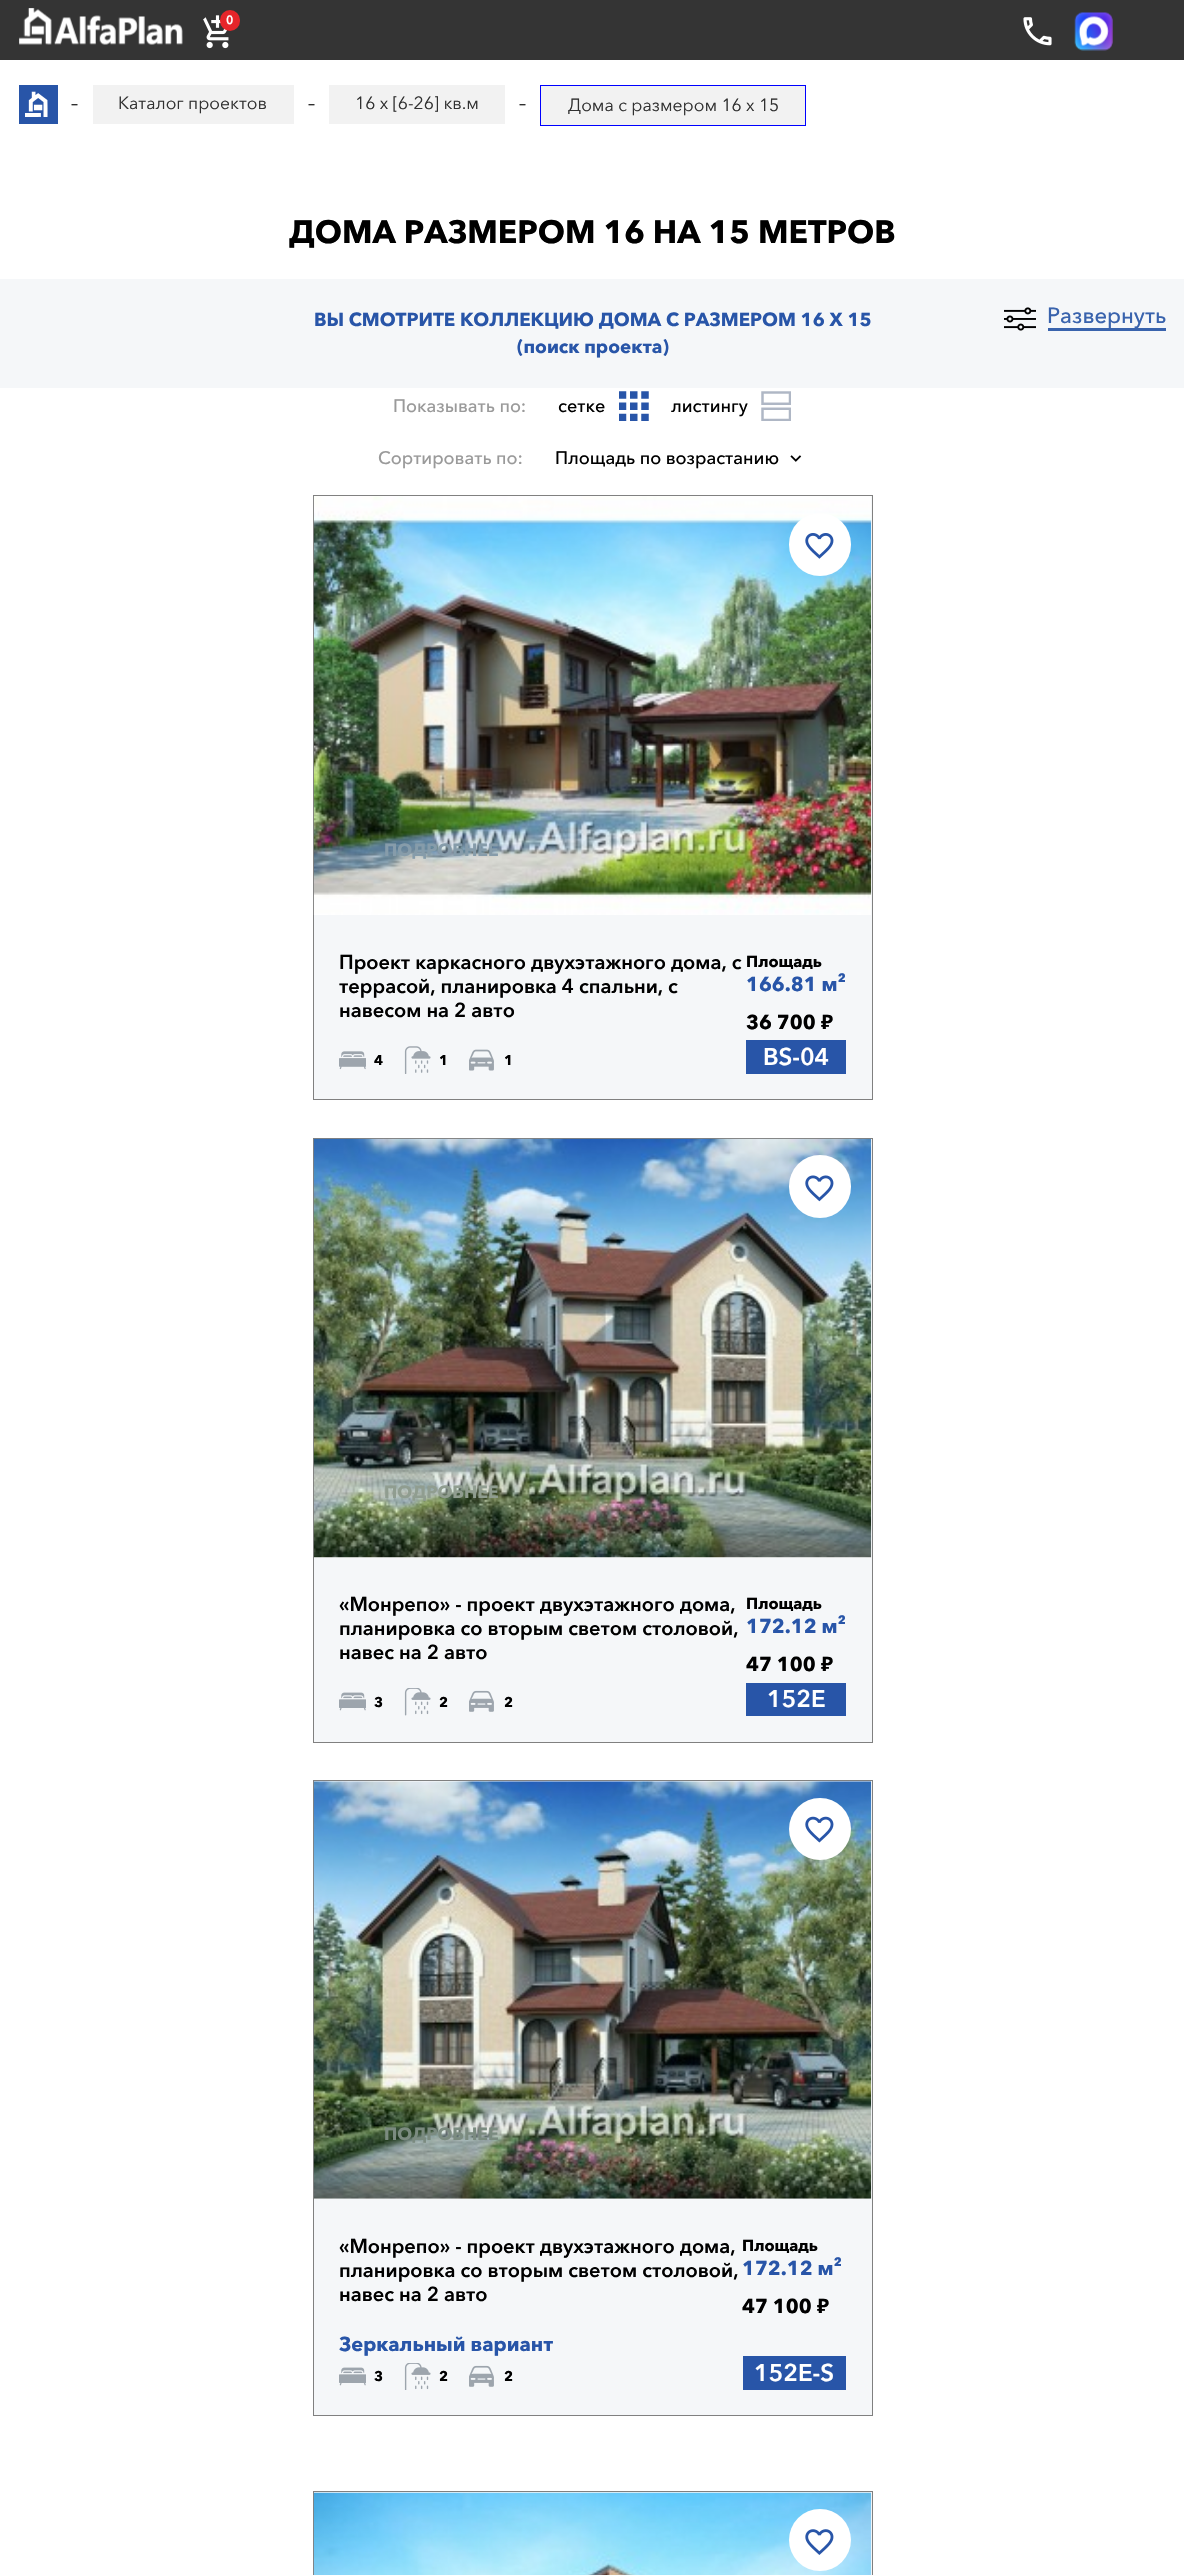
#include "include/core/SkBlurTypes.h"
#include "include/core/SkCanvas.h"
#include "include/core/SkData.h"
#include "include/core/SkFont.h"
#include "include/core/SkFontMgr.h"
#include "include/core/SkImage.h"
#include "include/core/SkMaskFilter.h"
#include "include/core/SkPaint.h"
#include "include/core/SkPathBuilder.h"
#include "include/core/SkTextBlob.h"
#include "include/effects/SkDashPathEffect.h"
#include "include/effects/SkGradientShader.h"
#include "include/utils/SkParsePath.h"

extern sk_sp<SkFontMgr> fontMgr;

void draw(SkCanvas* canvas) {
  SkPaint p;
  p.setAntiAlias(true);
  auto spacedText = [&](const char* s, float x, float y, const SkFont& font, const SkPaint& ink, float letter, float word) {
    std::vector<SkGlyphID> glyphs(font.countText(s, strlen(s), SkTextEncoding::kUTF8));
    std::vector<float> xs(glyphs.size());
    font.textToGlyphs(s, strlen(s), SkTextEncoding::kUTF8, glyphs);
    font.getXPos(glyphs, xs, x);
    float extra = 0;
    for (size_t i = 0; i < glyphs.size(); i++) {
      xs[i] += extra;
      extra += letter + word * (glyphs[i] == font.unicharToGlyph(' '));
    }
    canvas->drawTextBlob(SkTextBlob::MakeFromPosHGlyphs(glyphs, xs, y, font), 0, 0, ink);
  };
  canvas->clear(SK_ColorWHITE);
  p.setColor(SkColorSetRGB(52, 52, 52));
  canvas->drawRect(SkRect::MakeLTRB(0, 0, 1184, 60), p);
  canvas->drawImageRect(SkImages::DeferredFromEncodedData(SkData::MakeFromFileName("images/1.png")), SkRect::MakeLTRB(19, 8, 183, 45), SkSamplingOptions());
  canvas->drawImageRect(SkImages::DeferredFromEncodedData(SkData::MakeFromFileName("images/2.png")), SkRect::MakeLTRB(203, 15, 229, 49), SkSamplingOptions());
  p.setColor(SkColorSetRGB(230, 37, 42));
  canvas->drawRoundRect(SkRect::MakeLTRB(220, 10, 240, 31), 10, 10, p);
  canvas->drawImageRect(SkImages::DeferredFromEncodedData(SkData::MakeFromFileName("images/3.png")), SkRect::MakeLTRB(1023, 17, 1052, 46), SkSamplingOptions());
  canvas->drawImageRect(SkImages::DeferredFromEncodedData(SkData::MakeFromFileName("images/4.png")), SkRect::MakeLTRB(1074, 12, 1113, 51), SkSamplingOptions());
  p.setColor(SkColorSetRGB(40, 85, 168));
  canvas->drawRect(SkRect::MakeLTRB(19, 85, 58, 124), p);
  canvas->drawImageRect(SkImages::DeferredFromEncodedData(SkData::MakeFromFileName("images/5.png")), SkRect::MakeLTRB(25, 91, 48, 117), SkSamplingOptions());
  p.setColor(SkColorSetRGB(242, 242, 242));
  canvas->drawRect(SkRect::MakeLTRB(93, 85, 294, 124), p);
  canvas->drawRect(SkRect::MakeLTRB(329, 85, 505, 124), p);
  canvas->drawRect(SkRect::MakeLTRB(540.5f, 85.5f, 805.5f, 125.5f), p);
  p.setStyle(SkPaint::kStroke_Style);
  p.setStrokeWidth(1);
  p.setColor(SkColorSetRGB(0, 0, 255));
  canvas->drawRect(SkRect::MakeLTRB(540.5f, 85.5f, 805.5f, 125.5f), p);
  p.setStyle(SkPaint::kFill_Style);
  p.setColor(SkColorSetRGB(245, 247, 249));
  canvas->drawRect(SkRect::MakeLTRB(0, 279, 1184, 388), p);
  p.setColor(SkColorSetRGB(57, 99, 173));
  canvas->drawRect(SkRect::MakeLTRB(1048, 328, 1166, 331), p);
  canvas->drawImageRect(SkImages::DeferredFromEncodedData(SkData::MakeFromFileName("images/6.png")), SkRect::MakeLTRB(1004, 307, 1036, 331), SkSamplingOptions());
  canvas->drawImageRect(SkImages::DeferredFromEncodedData(SkData::MakeFromFileName("images/7.png")), SkRect::MakeLTRB(619, 391, 649, 421), SkSamplingOptions());
  canvas->drawImageRect(SkImages::DeferredFromEncodedData(SkData::MakeFromFileName("images/8.png")), SkRect::MakeLTRB(761, 391, 791, 421), SkSamplingOptions());
  canvas->drawImageRect(SkImages::DeferredFromEncodedData(SkData::MakeFromFileName("images/9.png")), SkRect::MakeLTRB(790, 455, 802, 462), SkSamplingOptions());
  p.setColor(SkColorSetRGB(245, 247, 249));
  canvas->drawRect(SkRect::MakeLTRB(313.5f, 495.5f, 872.5f, 1099.5f), p);
  p.setStyle(SkPaint::kStroke_Style);
  p.setColor(SkColorSetRGB(128, 128, 128));
  canvas->drawRect(SkRect::MakeLTRB(313.5f, 495.5f, 872.5f, 1099.5f), p);
  p.setStyle(SkPaint::kFill_Style);
  p.setColor(SK_ColorWHITE);
  canvas->drawRect(SkRect::MakeLTRB(314, 496, 871, 497), p);
  canvas->drawImageRect(SkImages::DeferredFromEncodedData(SkData::MakeFromFileName("images/10.png")), SkRect::MakeLTRB(313, 496, 872, 915), SkSamplingOptions());
  canvas->drawRoundRect(SkRect::MakeLTRB(789, 513, 851, 576), 31, 31, p);
  canvas->drawImageRect(SkImages::DeferredFromEncodedData(SkData::MakeFromFileName("images/11.png")), SkRect::MakeLTRB(805, 533, 834, 559), SkSamplingOptions());
  canvas->drawImageRect(SkImages::DeferredFromEncodedData(SkData::MakeFromFileName("images/12.png")), SkRect::MakeLTRB(339, 1051, 366, 1070), SkSamplingOptions());
  canvas->drawImageRect(SkImages::DeferredFromEncodedData(SkData::MakeFromFileName("images/13.png")), SkRect::MakeLTRB(404, 1046, 431, 1074), SkSamplingOptions());
  canvas->drawImageRect(SkImages::DeferredFromEncodedData(SkData::MakeFromFileName("images/14.png")), SkRect::MakeLTRB(469, 1049, 494, 1071), SkSamplingOptions());
  p.setColor(SkColorSetRGB(40, 85, 168));
  canvas->drawRect(SkRect::MakeLTRB(746, 1040, 846, 1074), p);
  p.setColor(SkColorSetRGB(245, 247, 249));
  canvas->drawRect(SkRect::MakeLTRB(313.5f, 1138.5f, 872.5f, 1742.5f), p);
  p.setStyle(SkPaint::kStroke_Style);
  p.setColor(SkColorSetRGB(128, 128, 128));
  canvas->drawRect(SkRect::MakeLTRB(313.5f, 1138.5f, 872.5f, 1742.5f), p);
  p.setStyle(SkPaint::kFill_Style);
  p.setColor(SK_ColorWHITE);
  canvas->drawRect(SkRect::MakeLTRB(314, 1557, 871, 1558), p);
  canvas->drawImageRect(SkImages::DeferredFromEncodedData(SkData::MakeFromFileName("images/15.png")), SkRect::MakeLTRB(313, 1138, 872, 1558), SkSamplingOptions());
  canvas->drawRoundRect(SkRect::MakeLTRB(789, 1155, 851, 1218), 31, 31, p);
  canvas->drawImageRect(SkImages::DeferredFromEncodedData(SkData::MakeFromFileName("images/16.png")), SkRect::MakeLTRB(805, 1175, 834, 1202), SkSamplingOptions());
  canvas->drawImageRect(SkImages::DeferredFromEncodedData(SkData::MakeFromFileName("images/17.png")), SkRect::MakeLTRB(339, 1692, 366, 1711), SkSamplingOptions());
  canvas->drawImageRect(SkImages::DeferredFromEncodedData(SkData::MakeFromFileName("images/18.png")), SkRect::MakeLTRB(404, 1688, 431, 1716), SkSamplingOptions());
  canvas->drawImageRect(SkImages::DeferredFromEncodedData(SkData::MakeFromFileName("images/19.png")), SkRect::MakeLTRB(469, 1690, 494, 1712), SkSamplingOptions());
  p.setColor(SkColorSetRGB(40, 85, 168));
  canvas->drawRect(SkRect::MakeLTRB(746, 1683, 846, 1716), p);
  p.setColor(SkColorSetRGB(245, 247, 249));
  canvas->drawRect(SkRect::MakeLTRB(313.5f, 1780.5f, 872.5f, 2415.5f), p);
  p.setStyle(SkPaint::kStroke_Style);
  p.setColor(SkColorSetRGB(128, 128, 128));
  canvas->drawRect(SkRect::MakeLTRB(313.5f, 1780.5f, 872.5f, 2415.5f), p);
  p.setStyle(SkPaint::kFill_Style);
  p.setColor(SK_ColorWHITE);
  canvas->drawRect(SkRect::MakeLTRB(314, 1781, 871, 2199), p);
  canvas->drawImageRect(SkImages::DeferredFromEncodedData(SkData::MakeFromFileName("images/20.png")), SkRect::MakeLTRB(313, 1781, 872, 2199), SkSamplingOptions());
  canvas->drawCircle(820, 1829, 31, p);
  canvas->drawImageRect(SkImages::DeferredFromEncodedData(SkData::MakeFromFileName("images/21.png")), SkRect::MakeLTRB(805, 1816, 834, 1843), SkSamplingOptions());
  canvas->drawImageRect(SkImages::DeferredFromEncodedData(SkData::MakeFromFileName("images/17.png")), SkRect::MakeLTRB(339, 2367, 366, 2386), SkSamplingOptions());
  canvas->drawImageRect(SkImages::DeferredFromEncodedData(SkData::MakeFromFileName("images/22.png")), SkRect::MakeLTRB(404, 2363, 431, 2390), SkSamplingOptions());
  canvas->drawImageRect(SkImages::DeferredFromEncodedData(SkData::MakeFromFileName("images/19.png")), SkRect::MakeLTRB(469, 2365, 494, 2387), SkSamplingOptions());
  p.setColor(SkColorSetRGB(40, 85, 168));
  canvas->drawRect(SkRect::MakeLTRB(743, 2356, 846, 2390), p);
  p.setColor(SkColorSetRGB(245, 247, 249));
  canvas->drawRect(SkRect::MakeLTRB(313.5f, 2491.5f, 872.5f, 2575.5f), p);
  p.setStyle(SkPaint::kStroke_Style);
  p.setColor(SkColorSetRGB(128, 128, 128));
  canvas->drawRect(SkRect::MakeLTRB(313.5f, 2491.5f, 872.5f, 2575.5f), p);
  canvas->drawImageRect(SkImages::DeferredFromEncodedData(SkData::MakeFromFileName("images/23.png")), SkRect::MakeLTRB(313, 2492, 872, 2575), SkSamplingOptions());
  p.setStyle(SkPaint::kFill_Style);
  p.setColor(SK_ColorWHITE);
  canvas->drawCircle(820, 2540, 31, p);
  canvas->drawImageRect(SkImages::DeferredFromEncodedData(SkData::MakeFromFileName("images/24.png")), SkRect::MakeLTRB(805, 2529, 834, 2555), SkSamplingOptions());
  SkFont font1(fontMgr->matchFamilyStyle("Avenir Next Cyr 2", SkFontStyle::Bold()), 12);
  font1.setSubpixel(true);
  spacedText("0", 226, 24, font1, p, -1, 0);
  SkFont font2(fontMgr->matchFamilyStyle("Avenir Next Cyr", SkFontStyle::Normal()), 17.5f);
  font2.setSubpixel(true);
  p.setColor(SK_ColorBLACK);
  canvas->drawString("–", 71, 109, font2, p);
  p.setColor(SkColorSetRGB(49, 49, 49));
  canvas->drawString("Каталог проектов", 118, 109, font2, p);
  p.setColor(SK_ColorBLACK);
  canvas->drawString("–", 308, 109, font2, p);
  p.setColor(SkColorSetRGB(49, 49, 49));
  canvas->drawString("16 x [6-26] кв.м", 355, 109, font2, p);
  p.setColor(SK_ColorBLACK);
  canvas->drawString("–", 519, 109, font2, p);
  p.setColor(SkColorSetRGB(49, 49, 49));
  canvas->drawString("Дома с размером 16 x 15", 568, 111, font2, p);
  SkFont font3(fontMgr->matchFamilyStyle("Avenir Next Cyr", SkFontStyle::Bold()), 32);
  font3.setSubpixel(true);
  p.setColor(SK_ColorBLACK);
  canvas->drawString("ДОМА РАЗМЕРОМ 16 НА 15 МЕТРОВ", 289, 243, font3, p);
  SkFont font4(fontMgr->matchFamilyStyle("Avenir Next Cyr", SkFontStyle::Bold()), 18.75f);
  font4.setSubpixel(true);
  p.setColor(SkColorSetRGB(40, 85, 168));
  canvas->drawString("ВЫ СМОТРИТЕ КОЛЛЕКЦИЮ ДОМА С РАЗМЕРОМ 16 X 15", 314, 326, font4, p);
  canvas->drawString("(поиск проекта)", 517, 353, font4, p);
  SkFont font5(fontMgr->matchFamilyStyle("Avenir Next Cyr", SkFontStyle(500, SkFontStyle::kNormal_Width, SkFontStyle::kUpright_Slant)), 22);
  font5.setSubpixel(true);
  p.setColor(SkColorSetRGB(57, 99, 173));
  canvas->drawString("Развернуть", 1047, 323, font5, p);
  SkFont font6(fontMgr->matchFamilyStyle("Avenir Next Cyr", SkFontStyle(500, SkFontStyle::kNormal_Width, SkFontStyle::kUpright_Slant)), 18);
  font6.setSubpixel(true);
  p.setColor(SkColorSetRGB(154, 154, 154));
  canvas->drawString("Показывать по:", 393, 412, font6, p);
  p.setColor(SK_ColorBLACK);
  canvas->drawString("сетке", 558, 412, font6, p);
  canvas->drawString("листингу", 671, 412, font6, p);
  p.setColor(SkColorSetRGB(154, 154, 154));
  canvas->drawString("Сортировать по:", 378, 464, font6, p);
  p.setColor(SK_ColorBLACK);
  canvas->drawString("Площадь по возрастанию", 555, 464, font6, p);
  SkFont font7(fontMgr->matchFamilyStyle("Avenir Next Cyr", SkFontStyle::Bold()), 17.5f);
  font7.setSubpixel(true);
  p.setColor(SkColorSetRGB(134, 156, 170));
  canvas->drawString("ПОДРОБНЕЕ", 384, 856, font7, p);
  SkFont font8(fontMgr->matchFamilyStyle("Avenir Next Cyr 2", SkFontStyle::Bold()), 20);
  font8.setSubpixel(true);
  p.setColor(SK_ColorBLACK);
  canvas->drawString("Проект каркасного двухэтажного дома, с", 339, 969, font8, p);
  canvas->drawString("террасой, планировка 4 спальни, с", 339, 993, font8, p);
  canvas->drawString("навесом на 2 авто", 339, 1017, font8, p);
  SkFont font9(fontMgr->matchFamilyStyle("Avenir Next Cyr", SkFontStyle::Bold()), 14);
  font9.setSubpixel(true);
  canvas->drawString("4", 374, 1065, font9, p);
  canvas->drawString("1", 439, 1065, font9, p);
  canvas->drawString("1", 504, 1065, font9, p);
  SkFont font10(fontMgr->matchFamilyStyle("Avenir Next Cyr", SkFontStyle::Bold()), 16);
  font10.setSubpixel(true);
  canvas->drawString("Площадь", 746, 967, font10, p);
  SkFont font11(fontMgr->matchFamilyStyle("Avenir Next Cyr", SkFontStyle::Bold()), 20);
  font11.setSubpixel(true);
  p.setColor(SkColorSetRGB(40, 85, 168));
  canvas->drawString("166.81 м²", 746, 991, font11, p);
  p.setColor(SK_ColorBLACK);
  canvas->drawString("36 700", 746, 1029, font11, p);
  SkFont font12(fontMgr->matchFamilyStyle("Noto Sans", SkFontStyle::Bold()), 20);
  font12.setSubpixel(true);
  canvas->drawString("₽", 821, 1029, font12, p);
  SkFont font13(fontMgr->matchFamilyStyle("Avenir Next Cyr 2", SkFontStyle::Bold()), 24);
  font13.setSubpixel(true);
  p.setColor(SK_ColorWHITE);
  canvas->drawString("BS-04", 763, 1065, font13, p);
  p.setColor(SkColorSetRGB(144, 157, 144));
  canvas->drawString("ПОДРОБНЕЕ", 384, 1498, font7, p);
  p.setColor(SK_ColorBLACK);
  canvas->drawString("«Монрепо» - проект двухэтажного дома,", 339, 1611, font8, p);
  canvas->drawString("планировка со вторым светом столовой,", 339, 1635, font8, p);
  canvas->drawString("навес на 2 авто", 339, 1659, font8, p);
  canvas->drawString("3", 374, 1707, font9, p);
  canvas->drawString("2", 439, 1707, font9, p);
  canvas->drawString("2", 504, 1707, font9, p);
  canvas->drawString("Площадь", 746, 1609, font10, p);
  p.setColor(SkColorSetRGB(40, 85, 168));
  canvas->drawString("172.12 м²", 746, 1633, font11, p);
  p.setColor(SK_ColorBLACK);
  canvas->drawString("47 100", 746, 1671, font11, p);
  canvas->drawString("₽", 821, 1671, font12, p);
  p.setColor(SK_ColorWHITE);
  canvas->drawString("152E", 767, 1707, font13, p);
  p.setColor(SkColorSetRGB(123, 139, 128));
  canvas->drawString("ПОДРОБНЕЕ", 384, 2140, font7, p);
  p.setColor(SK_ColorBLACK);
  canvas->drawString("«Монрепо» - проект двухэтажного дома,", 339, 2253, font8, p);
  canvas->drawString("планировка со вторым светом столовой,", 339, 2277, font8, p);
  canvas->drawString("навес на 2 авто", 339, 2301, font8, p);
  p.setColor(SkColorSetRGB(40, 85, 168));
  canvas->drawString("Зеркальный вариант", 339, 2351, font11, p);
  p.setColor(SK_ColorBLACK);
  canvas->drawString("3", 374, 2381, font9, p);
  canvas->drawString("2", 439, 2381, font9, p);
  canvas->drawString("2", 504, 2381, font9, p);
  canvas->drawString("Площадь", 742, 2251, font10, p);
  p.setColor(SkColorSetRGB(40, 85, 168));
  canvas->drawString("172.12 м²", 742, 2275, font11, p);
  p.setColor(SK_ColorBLACK);
  canvas->drawString("47 100", 742, 2313, font11, p);
  canvas->drawString("₽", 817, 2313, font12, p);
  p.setColor(SK_ColorWHITE);
  canvas->drawString("152E-S", 754, 2381, font13, p);
}
